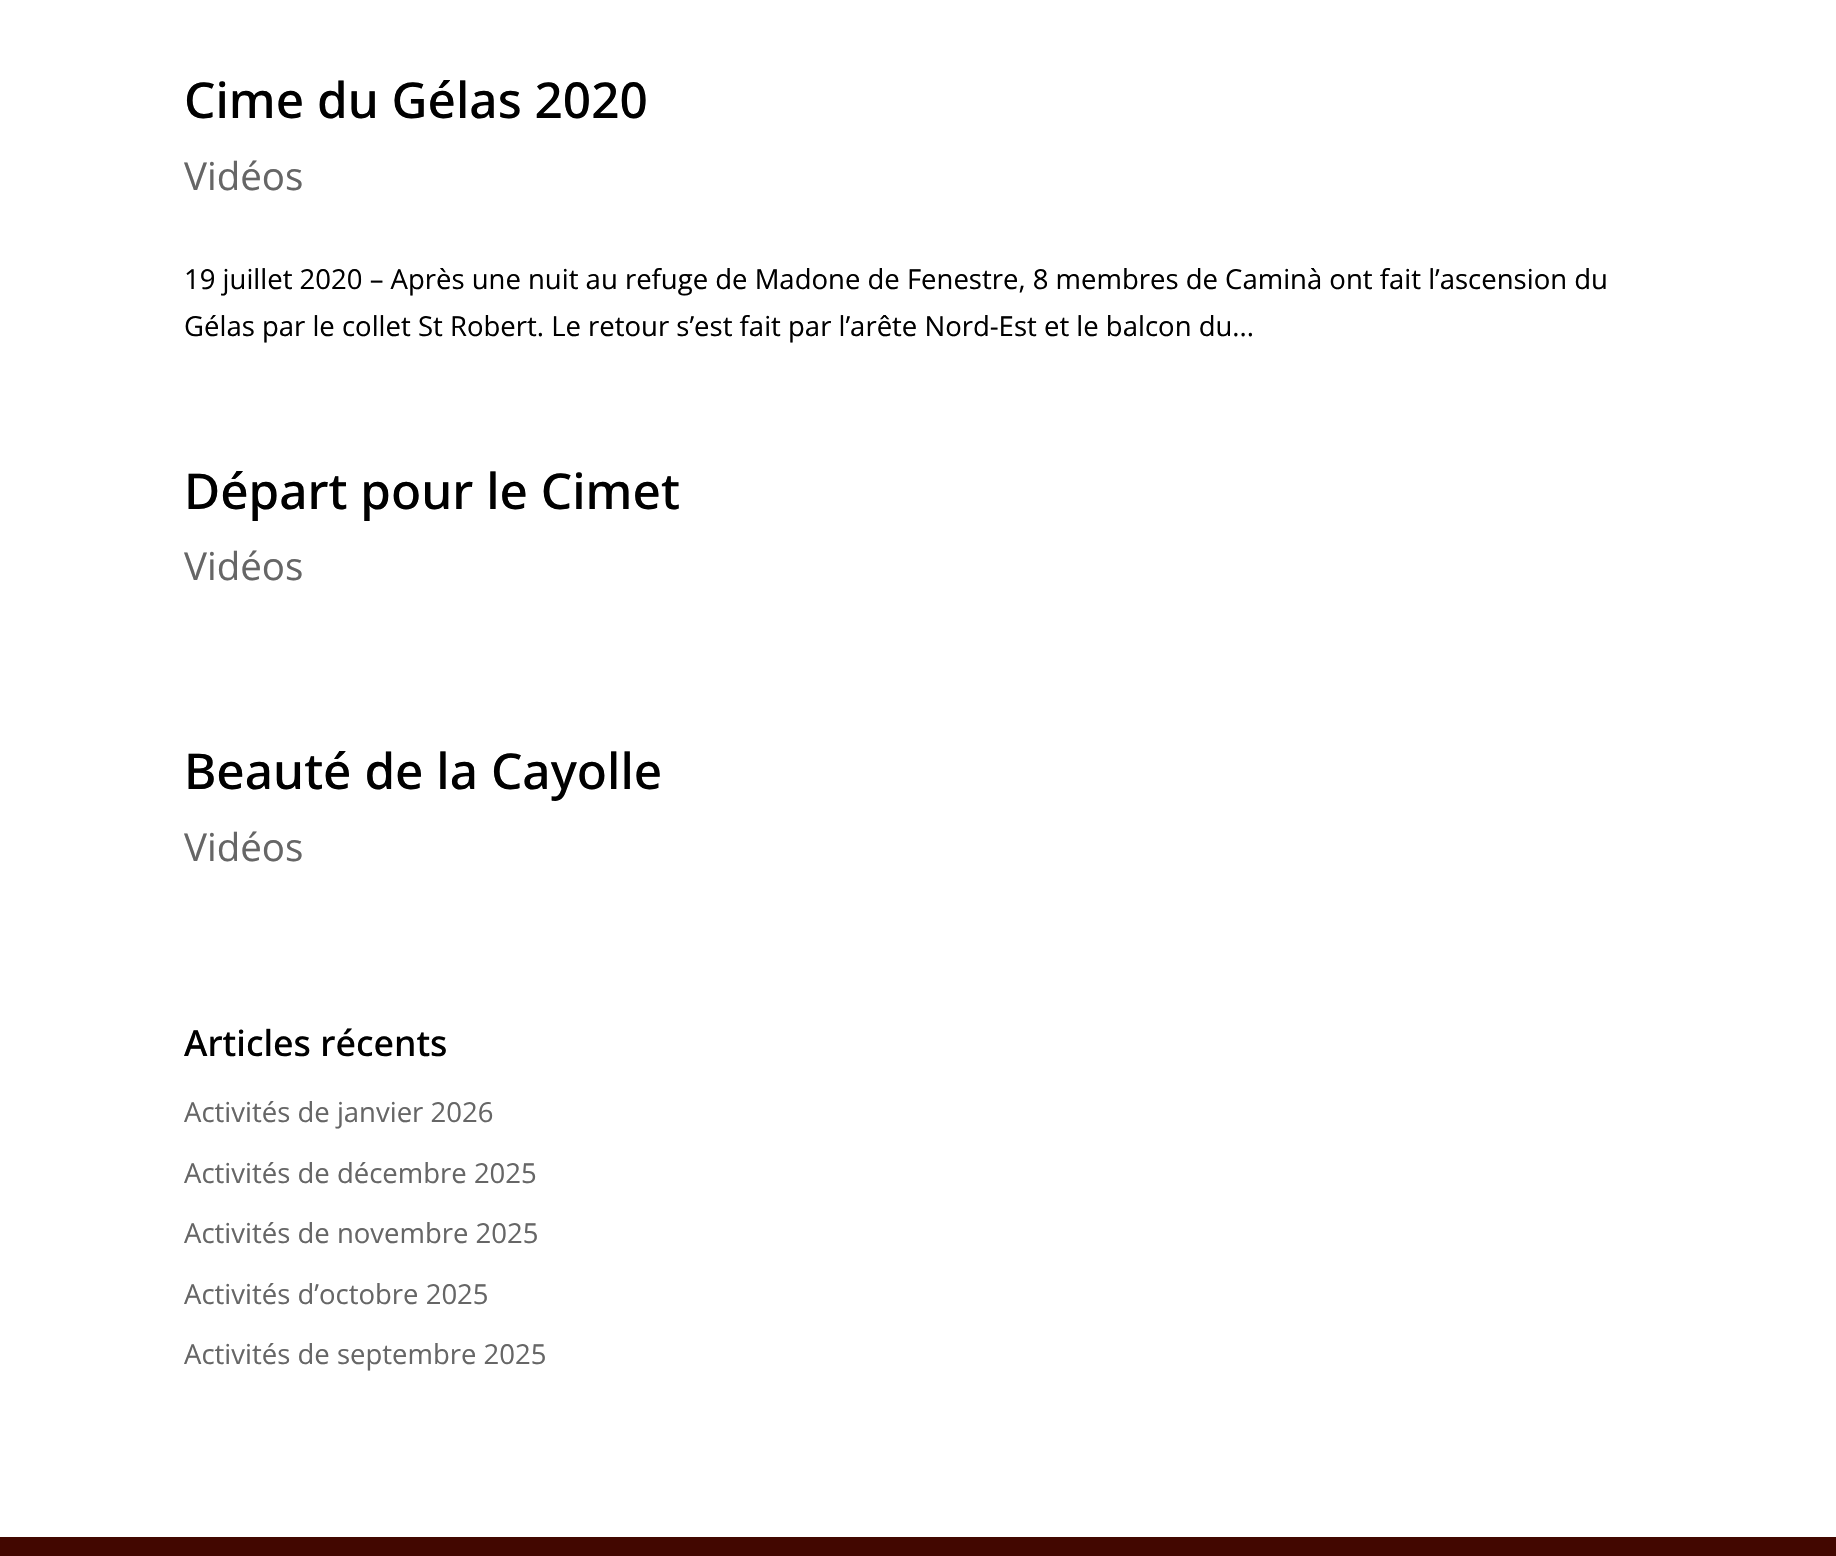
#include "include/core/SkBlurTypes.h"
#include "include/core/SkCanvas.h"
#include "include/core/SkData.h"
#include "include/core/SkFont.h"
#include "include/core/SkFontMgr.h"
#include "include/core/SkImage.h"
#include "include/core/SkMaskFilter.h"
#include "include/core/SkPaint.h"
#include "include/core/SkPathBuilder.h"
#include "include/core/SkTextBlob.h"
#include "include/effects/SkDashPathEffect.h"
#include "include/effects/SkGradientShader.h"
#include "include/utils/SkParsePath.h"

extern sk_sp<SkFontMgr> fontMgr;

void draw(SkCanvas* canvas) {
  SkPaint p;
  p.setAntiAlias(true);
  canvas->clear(SK_ColorWHITE);
  p.setColor(SkColorSetRGB(66, 7, 0));
  canvas->drawRect(SkRect::MakeLTRB(0, 1537, 1836, 1556), p);
  SkFont font1(fontMgr->matchFamilyStyle("Noto Sans", SkFontStyle(500, SkFontStyle::kNormal_Width, SkFontStyle::kUpright_Slant)), 49.5f);
  font1.setSubpixel(true);
  p.setColor(SK_ColorBLACK);
  canvas->drawString("Cime du Gélas 2020", 184, 118, font1, p);
  SkFont font2(fontMgr->matchFamilyStyle("Open Sans", SkFontStyle::Normal()), 38.5f);
  font2.setSubpixel(true);
  p.setColor(SkColorSetRGB(102, 102, 102));
  canvas->drawString("Vidéos", 184, 190, font2, p);
  SkFont font3(fontMgr->matchFamilyStyle("Open Sans", SkFontStyle::Normal()), 27.5f);
  font3.setSubpixel(true);
  p.setColor(SK_ColorBLACK);
  canvas->drawString("19 juillet 2020 – Après une nuit au refuge de Madone de Fenestre, 8 membres de Caminà ont fait l’ascension du", 184, 289, font3, p);
  canvas->drawString("Gélas par le collet St Robert. Le retour s’est fait par l’arête Nord-Est et le balcon du...", 184, 336, font3, p);
  canvas->drawString("Départ pour le Cimet", 184, 509, font1, p);
  p.setColor(SkColorSetRGB(102, 102, 102));
  canvas->drawString("Vidéos", 184, 580, font2, p);
  p.setColor(SK_ColorBLACK);
  canvas->drawString("Beauté de la Cayolle", 184, 789, font1, p);
  p.setColor(SkColorSetRGB(102, 102, 102));
  canvas->drawString("Vidéos", 184, 861, font2, p);
  SkFont font4(fontMgr->matchFamilyStyle("Noto Sans", SkFontStyle(500, SkFontStyle::kNormal_Width, SkFontStyle::kUpright_Slant)), 35.75f);
  font4.setSubpixel(true);
  p.setColor(SK_ColorBLACK);
  canvas->drawString("Articles récents", 184, 1056, font4, p);
  p.setColor(SkColorSetRGB(102, 102, 102));
  canvas->drawString("Activités de janvier 2026", 184, 1122, font3, p);
  canvas->drawString("Activités de décembre 2025", 184, 1183, font3, p);
  canvas->drawString("Activités de novembre 2025", 184, 1243, font3, p);
  canvas->drawString("Activités d’octobre 2025", 184, 1304, font3, p);
  canvas->drawString("Activités de septembre 2025", 184, 1364, font3, p);
}
